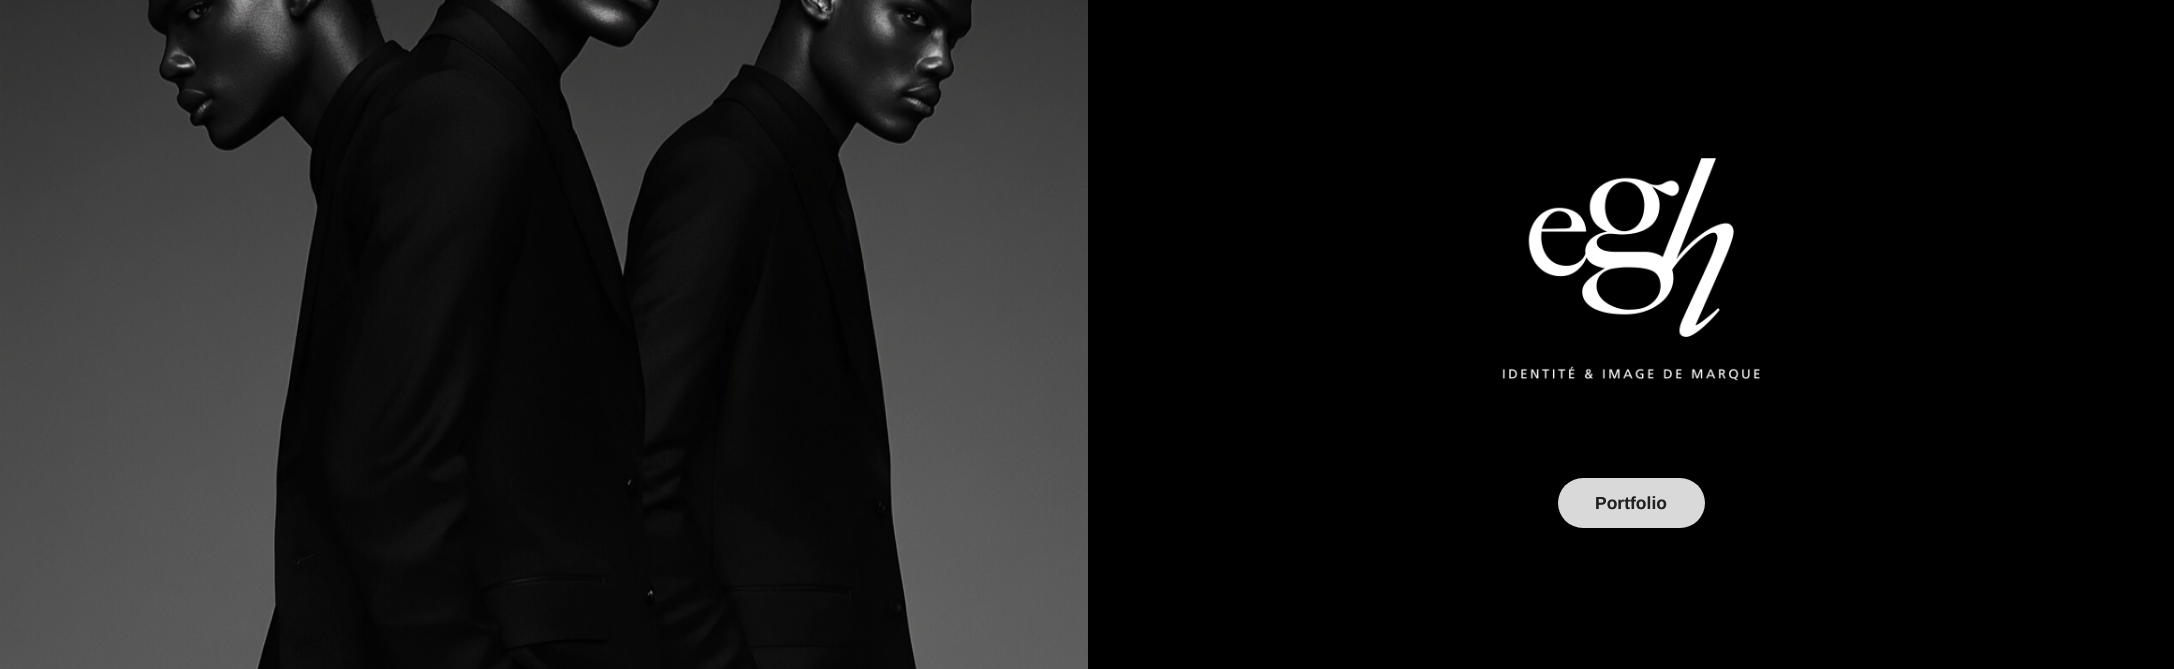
#include "include/core/SkBlurTypes.h"
#include "include/core/SkCanvas.h"
#include "include/core/SkData.h"
#include "include/core/SkFont.h"
#include "include/core/SkFontMgr.h"
#include "include/core/SkImage.h"
#include "include/core/SkMaskFilter.h"
#include "include/core/SkPaint.h"
#include "include/core/SkPathBuilder.h"
#include "include/core/SkTextBlob.h"
#include "include/effects/SkDashPathEffect.h"
#include "include/effects/SkGradientShader.h"
#include "include/utils/SkParsePath.h"

extern sk_sp<SkFontMgr> fontMgr;

void draw(SkCanvas* canvas) {
  SkPaint p;
  p.setAntiAlias(true);
  canvas->clear(SK_ColorBLACK);
  canvas->drawImageRect(SkImages::DeferredFromEncodedData(SkData::MakeFromFileName("images/1.png")), SkRect::MakeLTRB(0, 0, 1088, 669), SkSamplingOptions());
  canvas->drawImageRect(SkImages::DeferredFromEncodedData(SkData::MakeFromFileName("images/2.png")), SkRect::MakeLTRB(1502, 158, 1760, 381), SkSamplingOptions());
  p.setColor(SkColorSetRGB(217, 217, 217));
  canvas->drawRoundRect(SkRect::MakeLTRB(1558, 478, 1705, 528), 25, 25, p);
  SkFont font1(fontMgr->matchFamilyStyle("Liberation Sans", SkFontStyle::Bold()), 17.5f);
  font1.setSubpixel(true);
  p.setColor(SkColorSetRGB(34, 34, 34));
  canvas->drawString("Portfolio", 1595, 509, font1, p);
}
